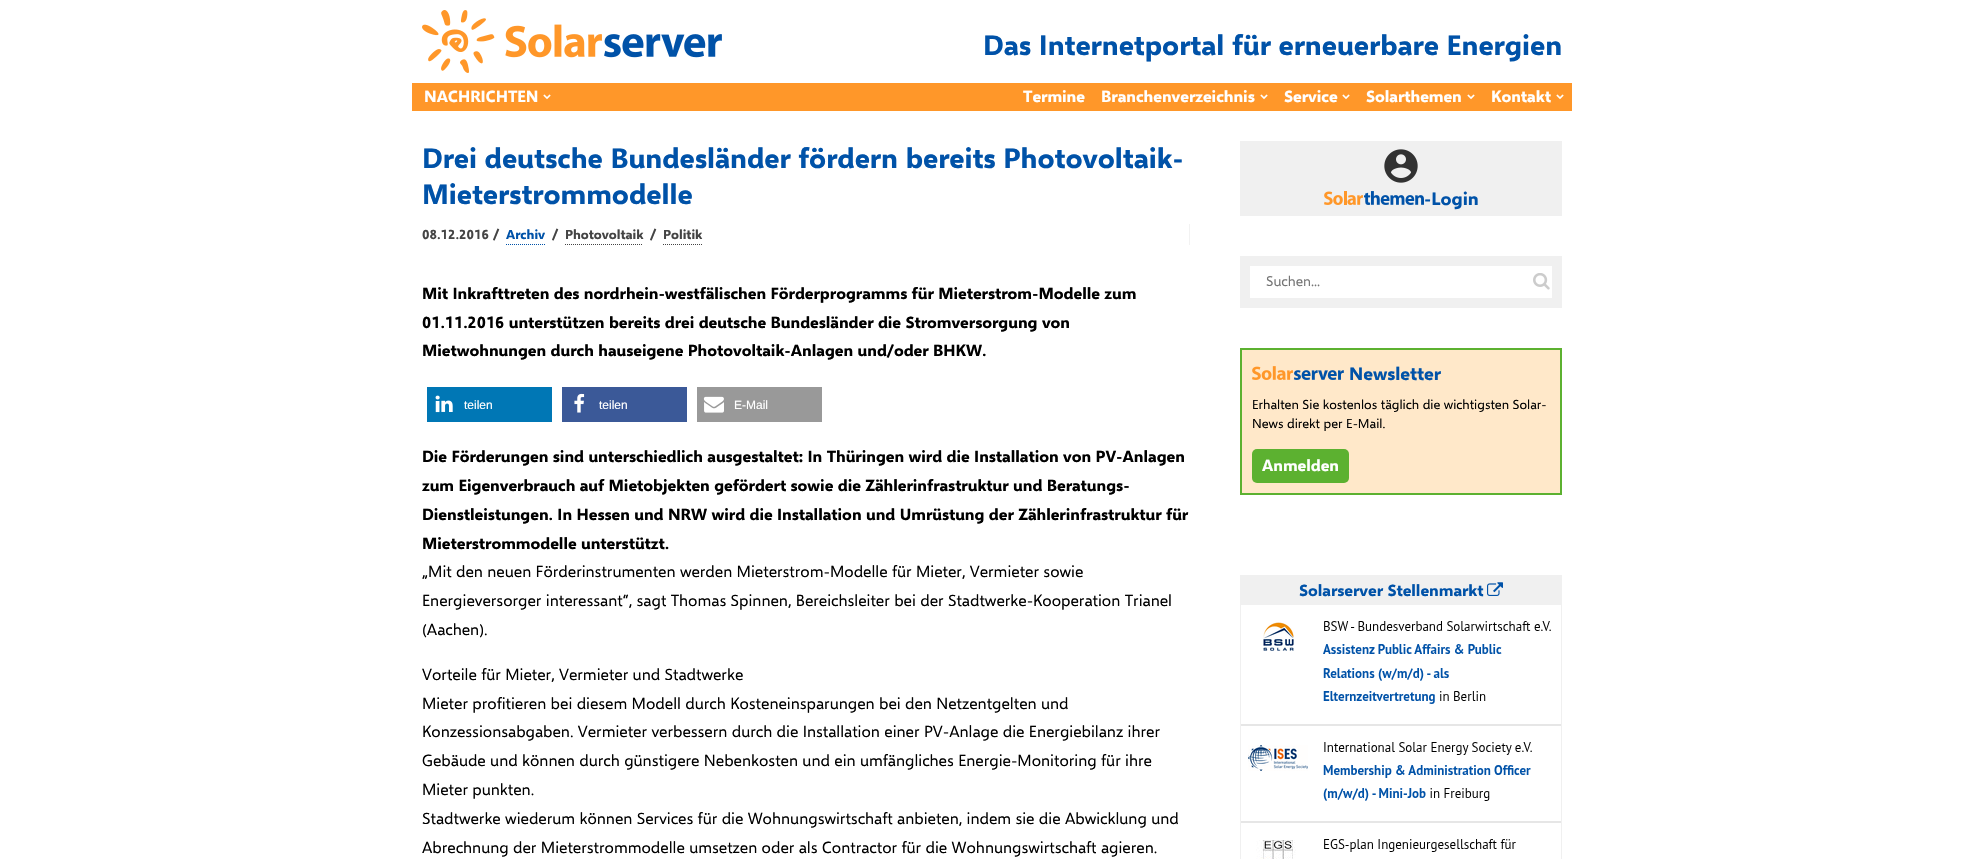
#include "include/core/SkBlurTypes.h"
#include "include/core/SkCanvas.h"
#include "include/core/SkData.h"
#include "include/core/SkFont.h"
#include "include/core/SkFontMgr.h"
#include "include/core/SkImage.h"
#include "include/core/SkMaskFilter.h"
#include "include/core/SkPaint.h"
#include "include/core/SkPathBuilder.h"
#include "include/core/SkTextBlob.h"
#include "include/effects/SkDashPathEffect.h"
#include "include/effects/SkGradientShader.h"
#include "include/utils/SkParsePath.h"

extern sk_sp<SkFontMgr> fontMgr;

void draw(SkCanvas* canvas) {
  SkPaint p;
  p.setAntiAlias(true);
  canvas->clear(SK_ColorWHITE);
  canvas->drawImageRect(SkImages::DeferredFromEncodedData(SkData::MakeFromFileName("images/1.png")), SkRect::MakeLTRB(422, 10, 722, 73), SkSamplingOptions());
  p.setColor(SkColorSetRGB(255, 151, 41));
  canvas->drawRect(SkRect::MakeLTRB(412, 83, 1572, 111), p);
  canvas->drawImageRect(SkImages::DeferredFromEncodedData(SkData::MakeFromFileName("images/2.png")), SkRect::MakeLTRB(543, 94, 551, 100), SkSamplingOptions());
  canvas->drawImageRect(SkImages::DeferredFromEncodedData(SkData::MakeFromFileName("images/2.png")), SkRect::MakeLTRB(1260, 94, 1268, 100), SkSamplingOptions());
  canvas->drawImageRect(SkImages::DeferredFromEncodedData(SkData::MakeFromFileName("images/2.png")), SkRect::MakeLTRB(1342, 94, 1350, 100), SkSamplingOptions());
  canvas->drawImageRect(SkImages::DeferredFromEncodedData(SkData::MakeFromFileName("images/2.png")), SkRect::MakeLTRB(1467, 94, 1475, 100), SkSamplingOptions());
  canvas->drawImageRect(SkImages::DeferredFromEncodedData(SkData::MakeFromFileName("images/2.png")), SkRect::MakeLTRB(1556, 94, 1564, 100), SkSamplingOptions());
  p.setColor(SkColorSetRGB(242, 242, 242));
  canvas->drawRect(SkRect::MakeLTRB(1189, 224, 1190, 245), p);
  p.setStyle(SkPaint::kStroke_Style);
  p.setStrokeWidth(1);
  p.setColor(SkColorSetRGB(0, 82, 168));
  p.setPathEffect(SkDashPathEffect::Make({{1, 1}}, 0));
  canvas->drawPath(SkPathBuilder().moveTo(506, 244.5f).lineTo(545, 244.5f).detach(), p);
  p.setPathEffect(nullptr);
  p.setColor(SkColorSetRGB(68, 68, 68));
  p.setPathEffect(SkDashPathEffect::Make({{1, 1}}, 0));
  canvas->drawPath(SkPathBuilder().moveTo(565, 244.5f).lineTo(643, 244.5f).detach(), p);
  p.setPathEffect(nullptr);
  p.setPathEffect(SkDashPathEffect::Make({{1, 1}}, 0));
  canvas->drawPath(SkPathBuilder().moveTo(663, 244.5f).lineTo(703, 244.5f).detach(), p);
  p.setPathEffect(nullptr);
  p.setStyle(SkPaint::kFill_Style);
  p.setColor(SkColorSetRGB(0, 119, 181));
  canvas->drawRect(SkRect::MakeLTRB(427, 387, 552, 422), p);
  canvas->drawImageRect(SkImages::DeferredFromEncodedData(SkData::MakeFromFileName("images/3.png")), SkRect::MakeLTRB(435, 395, 453, 413), SkSamplingOptions());
  p.setColor(SkColorSetRGB(59, 89, 152));
  canvas->drawRect(SkRect::MakeLTRB(562, 387, 687, 422), p);
  canvas->drawImageRect(SkImages::DeferredFromEncodedData(SkData::MakeFromFileName("images/4.png")), SkRect::MakeLTRB(574, 393, 585, 413), SkSamplingOptions());
  p.setColor(SkColorSetRGB(153, 153, 153));
  canvas->drawRect(SkRect::MakeLTRB(697, 387, 822, 422), p);
  canvas->drawImageRect(SkImages::DeferredFromEncodedData(SkData::MakeFromFileName("images/5.png")), SkRect::MakeLTRB(703, 396, 724, 413), SkSamplingOptions());
  p.setColor(SkColorSetRGB(240, 240, 240));
  canvas->drawRect(SkRect::MakeLTRB(1240, 141, 1562, 216), p);
  canvas->drawImageRect(SkImages::DeferredFromEncodedData(SkData::MakeFromFileName("images/6.png")), SkRect::MakeLTRB(1384, 149, 1418, 183), SkSamplingOptions());
  canvas->drawImageRect(SkImages::DeferredFromEncodedData(SkData::MakeFromFileName("images/7.png")), SkRect::MakeLTRB(1324, 191, 1424, 205), SkSamplingOptions());
  p.setStyle(SkPaint::kStroke_Style);
  p.setStrokeWidth(10);
  canvas->drawRect(SkRect::MakeLTRB(1245, 261, 1557, 303), p);
  canvas->drawImageRect(SkImages::DeferredFromEncodedData(SkData::MakeFromFileName("images/8.png")), SkRect::MakeLTRB(1533, 273, 1550, 290), SkSamplingOptions());
  p.setStyle(SkPaint::kFill_Style);
  p.setColor(SkColorSetRGB(255, 232, 201));
  canvas->drawRect(SkRect::MakeLTRB(1241, 349, 1561, 494), p);
  p.setStyle(SkPaint::kStroke_Style);
  p.setStrokeWidth(2);
  p.setColor(SkColorSetRGB(92, 177, 48));
  canvas->drawRect(SkRect::MakeLTRB(1241, 349, 1561, 494), p);
  canvas->drawImageRect(SkImages::DeferredFromEncodedData(SkData::MakeFromFileName("images/9.png")), SkRect::MakeLTRB(1252, 366, 1344, 380), SkSamplingOptions());
  p.setStyle(SkPaint::kFill_Style);
  canvas->drawRoundRect(SkRect::MakeLTRB(1252, 449, 1349, 483), 5, 5, p);
  p.setColor(SkColorSetRGB(240, 240, 240));
  canvas->drawRect(SkRect::MakeLTRB(1240, 575, 1562, 605), p);
  canvas->drawImageRect(SkImages::DeferredFromEncodedData(SkData::MakeFromFileName("images/10.png")), SkRect::MakeLTRB(1487, 582, 1503, 596), SkSamplingOptions());
  canvas->drawRect(SkRect::MakeLTRB(1240, 605, 1241, 859), p);
  canvas->drawImageRect(SkImages::DeferredFromEncodedData(SkData::MakeFromFileName("images/11.png")), SkRect::MakeLTRB(1241, 621, 1561, 859), SkSamplingOptions());
  canvas->drawRect(SkRect::MakeLTRB(1561, 605, 1562, 859), p);
  SkFont font1(fontMgr->matchFamilyStyle("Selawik", SkFontStyle::Bold()), 28);
  font1.setSubpixel(true);
  p.setColor(SkColorSetRGB(0, 82, 168));
  canvas->drawString("Das Internetportal für erneuerbare Energien", 983, 55, font1, p);
  SkFont font2(fontMgr->matchFamilyStyle("Selawik", SkFontStyle::Bold()), 16);
  font2.setSubpixel(true);
  p.setColor(SK_ColorWHITE);
  canvas->drawString("NACHRICHTEN", 424, 102, font2, p);
  canvas->drawString("Termine", 1023, 102, font2, p);
  canvas->drawString("Branchenverzeichnis", 1101, 102, font2, p);
  canvas->drawString("Service", 1284, 102, font2, p);
  canvas->drawString("Solarthemen", 1366, 102, font2, p);
  canvas->drawString("Kontakt", 1491, 102, font2, p);
  p.setColor(SkColorSetRGB(0, 82, 168));
  canvas->drawString("Drei deutsche Bundesländer fördern bereits Photovoltaik-", 422, 168, font1, p);
  canvas->drawString("Mieterstrommodelle", 422, 204, font1, p);
  SkFont font3(fontMgr->matchFamilyStyle("Selawik", SkFontStyle::Bold()), 13);
  font3.setSubpixel(true);
  p.setColor(SkColorSetRGB(68, 68, 68));
  canvas->drawString("08.12.2016", 422, 239, font3, p);
  SkFont font4(fontMgr->matchFamilyStyle("Selawik", SkFontStyle::Bold()), 14);
  font4.setSubpixel(true);
  canvas->drawString("/", 493, 239, font4, p);
  p.setColor(SkColorSetRGB(0, 82, 168));
  canvas->drawString("Archiv", 506, 239, font3, p);
  p.setColor(SkColorSetRGB(68, 68, 68));
  canvas->drawString("/", 552, 239, font4, p);
  canvas->drawString("Photovoltaik", 565, 239, font3, p);
  canvas->drawString("/", 650, 239, font4, p);
  canvas->drawString("Politik", 663, 239, font3, p);
  p.setColor(SK_ColorBLACK);
  canvas->drawString("Mit Inkrafttreten des nordrhein-westfälischen Förderprogramms für Mieterstrom-Modelle zum", 422, 299, font2, p);
  canvas->drawString("01.11.2016 unterstützen bereits drei deutsche Bundesländer die Stromversorgung von", 422, 328, font2, p);
  canvas->drawString("Mietwohnungen durch hauseigene Photovoltaik-Anlagen und/oder BHKW.", 422, 356, font2, p);
  SkFont font5(fontMgr->matchFamilyStyle("Liberation Sans", SkFontStyle::Normal()), 12);
  font5.setSubpixel(true);
  p.setColor(SK_ColorWHITE);
  canvas->drawString("teilen", 464, 409, font5, p);
  canvas->drawString("teilen", 599, 409, font5, p);
  canvas->drawString("E-Mail", 734, 409, font5, p);
  p.setColor(SK_ColorBLACK);
  canvas->drawString("Die Förderungen sind unterschiedlich ausgestaltet: In Thüringen wird die Installation von PV-Anlagen", 422, 462, font2, p);
  canvas->drawString("zum Eigenverbrauch auf Mietobjekten gefördert sowie die Zählerinfrastruktur und Beratungs-", 422, 491, font2, p);
  canvas->drawString("Dienstleistungen. In Hessen und NRW wird die Installation und Umrüstung der Zählerinfrastruktur für", 422, 520, font2, p);
  canvas->drawString("Mieterstrommodelle unterstützt.", 422, 549, font2, p);
  SkFont font6(fontMgr->matchFamilyStyle("Selawik", SkFontStyle::Normal()), 16);
  font6.setSubpixel(true);
  canvas->drawString("„Mit den neuen Förderinstrumenten werden Mieterstrom-Modelle für Mieter, Vermieter sowie", 422, 577, font6, p);
  canvas->drawString("Energieversorger interessant“, sagt Thomas Spinnen, Bereichsleiter bei der Stadtwerke-Kooperation Trianel", 422, 606, font6, p);
  canvas->drawString("(Aachen).", 422, 635, font6, p);
  canvas->drawString("Vorteile für Mieter, Vermieter und Stadtwerke", 422, 680, font6, p);
  canvas->drawString("Mieter profitieren bei diesem Modell durch Kosteneinsparungen bei den Netzentgelten und", 422, 709, font6, p);
  canvas->drawString("Konzessionsabgaben. Vermieter verbessern durch die Installation einer PV-Anlage die Energiebilanz ihrer", 422, 737, font6, p);
  canvas->drawString("Gebäude und können durch günstigere Nebenkosten und ein umfängliches Energie-Monitoring für ihre", 422, 766, font6, p);
  canvas->drawString("Mieter punkten.", 422, 795, font6, p);
  canvas->drawString("Stadtwerke wiederum können Services für die Wohnungswirtschaft anbieten, indem sie die Abwicklung und", 422, 824, font6, p);
  canvas->drawString("Abrechnung der Mieterstrommodelle umsetzen oder als Contractor für die Wohnungswirtschaft agieren.", 422, 853, font6, p);
  SkFont font7(fontMgr->matchFamilyStyle("Selawik", SkFontStyle::Bold()), 18);
  font7.setSubpixel(true);
  p.setColor(SkColorSetRGB(0, 82, 168));
  canvas->drawString("-Login", 1424, 205, font7, p);
  SkFont font8(fontMgr->matchFamilyStyle("Selawik", SkFontStyle::Normal()), 14);
  font8.setSubpixel(true);
  p.setColor(SkColorSetRGB(117, 117, 117));
  canvas->drawString("Suchen...", 1266, 286, font8, p);
  p.setColor(SkColorSetRGB(0, 82, 168));
  canvas->drawString("Newsletter", 1349, 380, font7, p);
  SkFont font9(fontMgr->matchFamilyStyle("Selawik", SkFontStyle::Normal()), 13);
  font9.setSubpixel(true);
  p.setColor(SK_ColorBLACK);
  canvas->drawString("Erhalten Sie kostenlos täglich die wichtigsten Solar-", 1252, 409, font9, p);
  canvas->drawString("News direkt per E-Mail.", 1252, 428, font9, p);
  p.setColor(SK_ColorWHITE);
  canvas->drawString("Anmelden", 1262, 471, font2, p);
  p.setColor(SkColorSetRGB(0, 82, 168));
  canvas->drawString("Solarserver Stellenmarkt", 1299, 596, font2, p);
}
